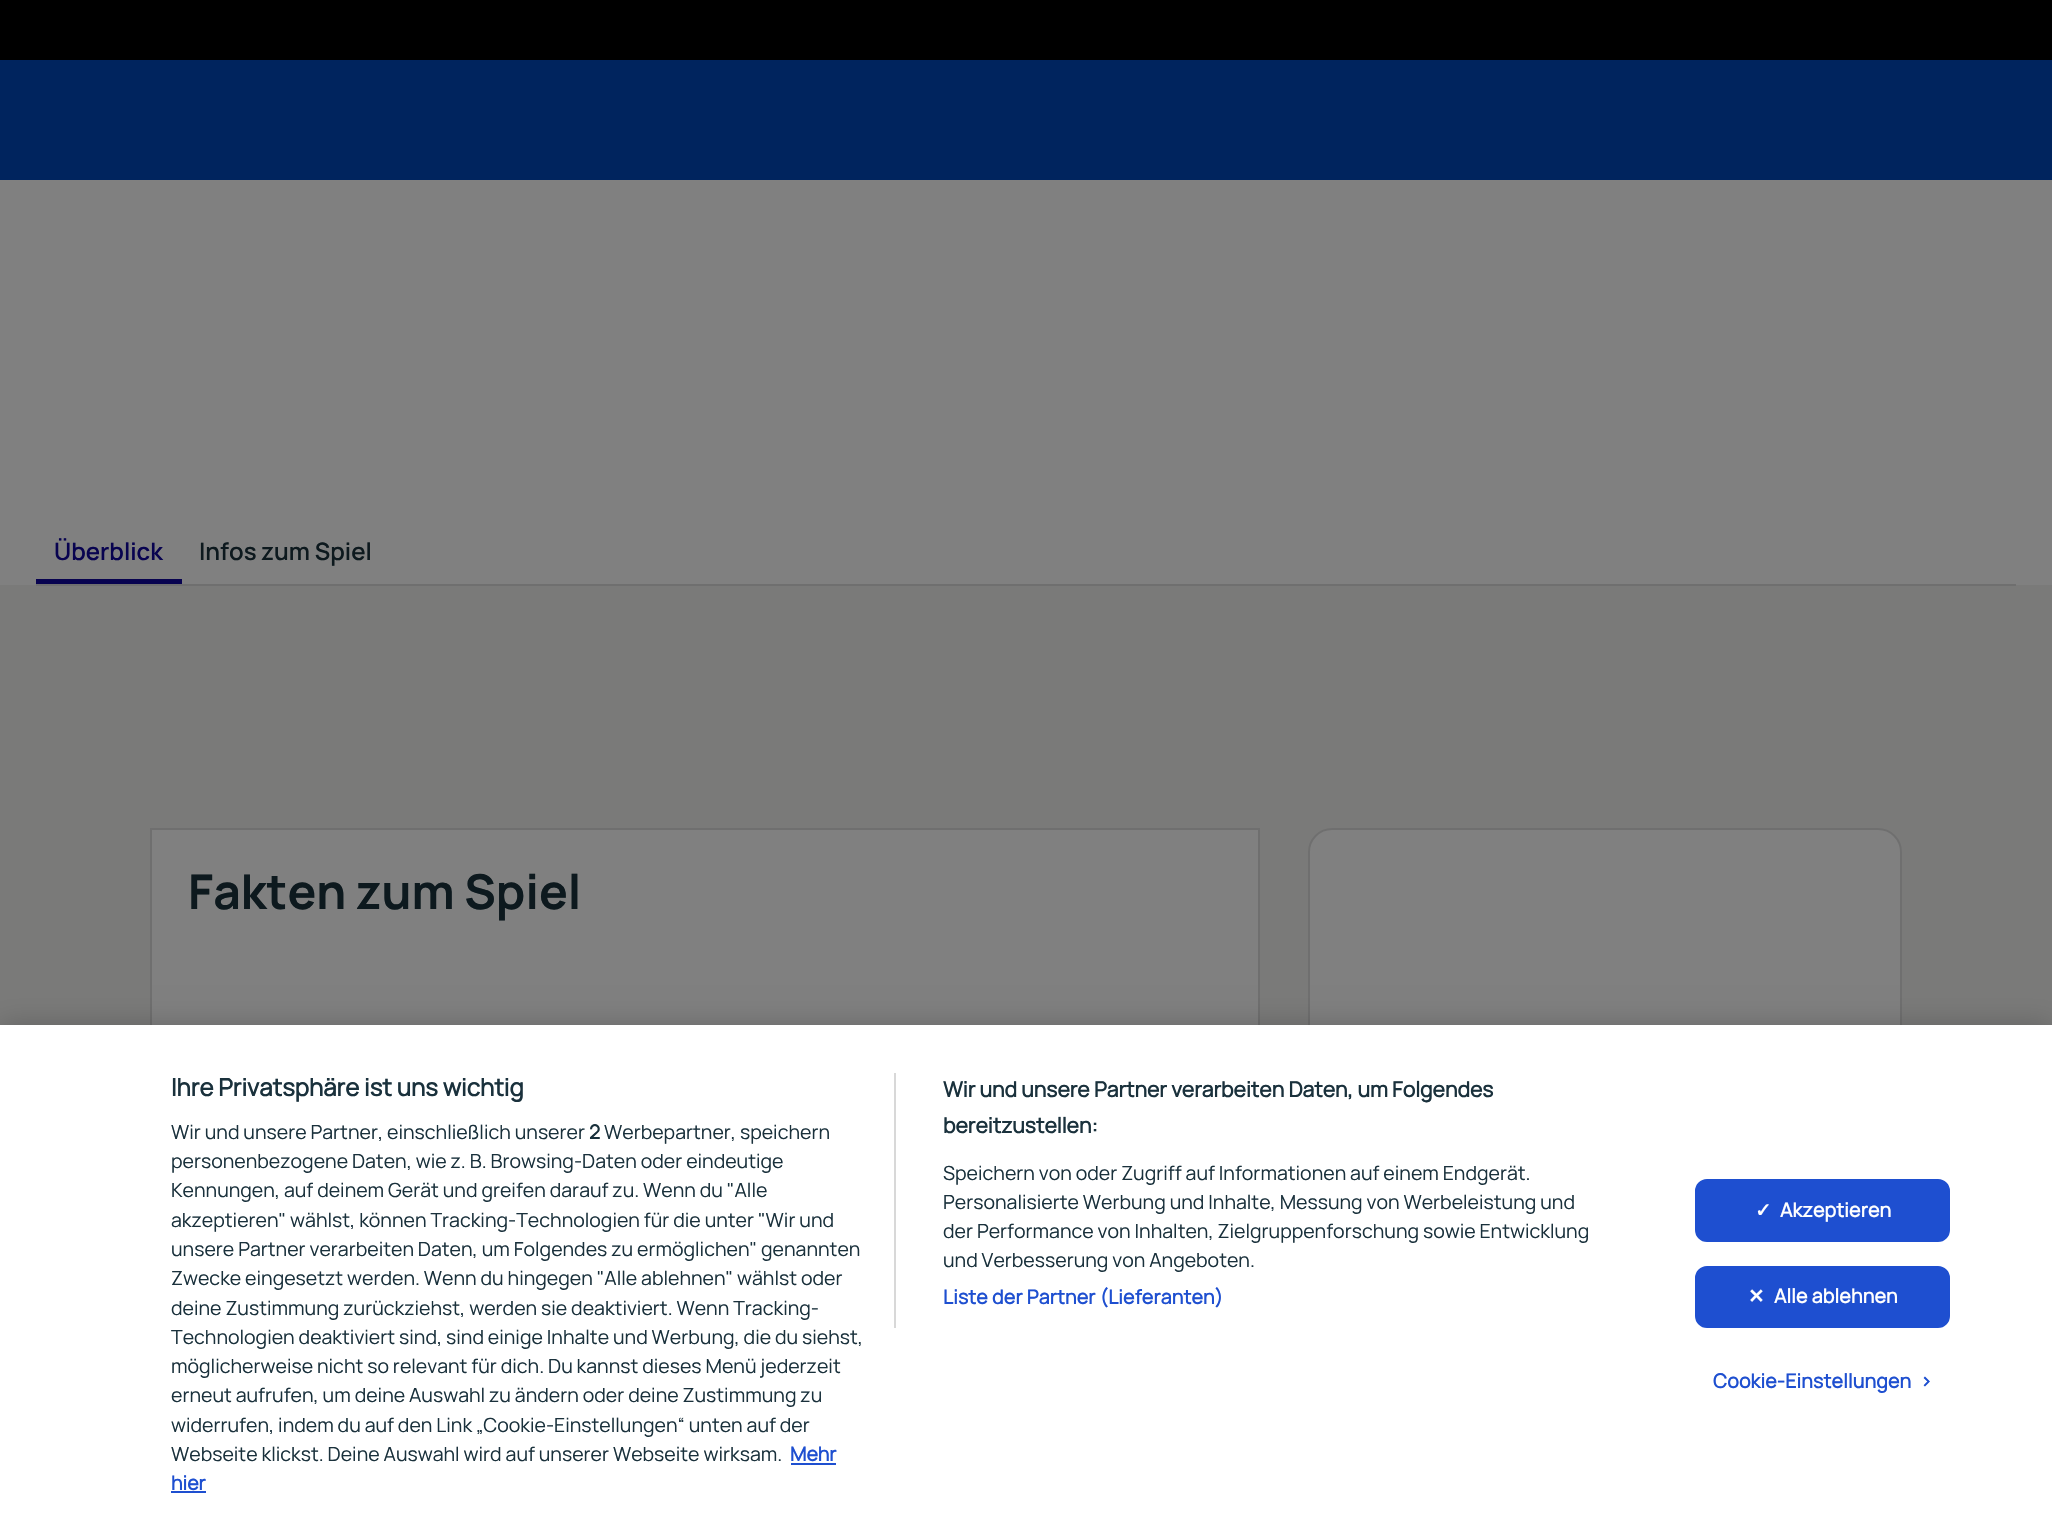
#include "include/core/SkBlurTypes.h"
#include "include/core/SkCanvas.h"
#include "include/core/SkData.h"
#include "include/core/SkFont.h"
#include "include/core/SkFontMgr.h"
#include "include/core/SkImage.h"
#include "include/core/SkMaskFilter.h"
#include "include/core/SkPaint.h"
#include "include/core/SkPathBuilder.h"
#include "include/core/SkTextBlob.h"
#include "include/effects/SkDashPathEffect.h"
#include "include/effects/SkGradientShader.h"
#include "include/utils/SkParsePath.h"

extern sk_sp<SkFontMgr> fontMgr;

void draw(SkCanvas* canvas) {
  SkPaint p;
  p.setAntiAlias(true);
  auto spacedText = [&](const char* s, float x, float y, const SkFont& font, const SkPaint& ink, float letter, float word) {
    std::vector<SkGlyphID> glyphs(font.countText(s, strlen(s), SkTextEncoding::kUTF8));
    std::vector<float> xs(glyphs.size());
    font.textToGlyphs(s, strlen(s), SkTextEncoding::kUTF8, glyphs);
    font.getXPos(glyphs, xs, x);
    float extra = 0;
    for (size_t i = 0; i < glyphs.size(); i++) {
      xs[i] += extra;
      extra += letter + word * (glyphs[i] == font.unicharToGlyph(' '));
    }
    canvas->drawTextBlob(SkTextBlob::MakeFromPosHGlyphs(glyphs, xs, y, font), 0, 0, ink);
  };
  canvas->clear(SkColorSetRGB(122, 122, 121));
  p.setColor(SK_ColorBLACK);
  canvas->drawRect(SkRect::MakeLTRB(0, 0, 2052, 60), p);
  p.setColor(SkColorSetRGB(0, 36, 94));
  canvas->drawRect(SkRect::MakeLTRB(0, 60, 2052, 180), p);
  p.setColor(SkColorSetRGB(128, 128, 128));
  canvas->drawRect(SkRect::MakeLTRB(0, 180, 2052, 585), p);
  p.setColor(SkColorSetRGB(111, 111, 111));
  canvas->drawRect(SkRect::MakeLTRB(36, 584, 2016, 586), p);
  p.setColor(SkColorSetRGB(8, 3, 80));
  canvas->drawRect(SkRect::MakeLTRB(36, 579, 182, 584), p);
  p.setColor(SkColorSetRGB(128, 128, 128));
  canvas->drawRect(SkRect::MakeLTRB(152, 830, 1258, 1025), p);
  p.setStyle(SkPaint::kStroke_Style);
  p.setStrokeWidth(2);
  p.setColor(SkColorSetRGB(111, 111, 111));
  canvas->drawRect(SkRect::MakeLTRB(151, 829, 1259, 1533), p);
  p.setStyle(SkPaint::kFill_Style);
  p.setColor(SkColorSetRGB(128, 128, 128));
  canvas->drawRoundRect(SkRect::MakeLTRB(1309, 829, 1901, 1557), 23, 23, p);
  p.setStyle(SkPaint::kStroke_Style);
  p.setColor(SkColorSetRGB(111, 111, 111));
  canvas->drawRoundRect(SkRect::MakeLTRB(1309, 829, 1901, 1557), 23, 23, p);
  p.setStyle(SkPaint::kFill_Style);
  p.setColor(SkColorSetARGB(51, 0, 0, 0));
  p.setMaskFilter(SkMaskFilter::MakeBlur(kNormal_SkBlurStyle, 13.5f));
  canvas->drawRect(SkRect::MakeLTRB(0, 1025, 2052, 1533), p);
  p.setMaskFilter(nullptr);
  p.setColor(SK_ColorWHITE);
  canvas->drawRect(SkRect::MakeLTRB(0, 1025, 2052, 1532), p);
  p.setColor(SkColorSetRGB(216, 216, 216));
  canvas->drawRect(SkRect::MakeLTRB(894, 1073, 896, 1328), p);
  p.setColor(SkColorSetRGB(30, 79, 208));
  canvas->drawRect(SkRect::MakeLTRB(791, 1463, 836, 1465), p);
  canvas->drawRect(SkRect::MakeLTRB(171, 1491, 206, 1493), p);
  canvas->drawRoundRect(SkRect::MakeLTRB(1696, 1180, 1949, 1241), 11, 11, p);
  p.setStyle(SkPaint::kStroke_Style);
  canvas->drawRoundRect(SkRect::MakeLTRB(1696, 1180, 1949, 1241), 11, 11, p);
  p.setStyle(SkPaint::kFill_Style);
  canvas->drawRoundRect(SkRect::MakeLTRB(1696, 1267, 1949, 1327), 11, 11, p);
  p.setStyle(SkPaint::kStroke_Style);
  canvas->drawRoundRect(SkRect::MakeLTRB(1696, 1267, 1949, 1327), 11, 11, p);
  SkFont font1(fontMgr->matchFamilyStyle("Manrope", SkFontStyle(600, SkFontStyle::kNormal_Width, SkFontStyle::kUpright_Slant)), 24);
  font1.setSubpixel(true);
  p.setStyle(SkPaint::kFill_Style);
  p.setColor(SkColorSetRGB(8, 3, 80));
  canvas->drawString("Überblick", 54, 560, font1, p);
  p.setColor(SkColorSetRGB(13, 25, 30));
  canvas->drawString("Infos zum Spiel", 199, 560, font1, p);
  SkFont font2(fontMgr->matchFamilyStyle("Manrope", SkFontStyle::Bold()), 48);
  font2.setSubpixel(true);
  canvas->drawString("Fakten zum Spiel", 188, 909, font2, p);
  SkFont font3(fontMgr->matchFamilyStyle("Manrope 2", SkFontStyle::Bold()), 24);
  font3.setSubpixel(true);
  p.setColor(SkColorSetRGB(26, 49, 60));
  canvas->drawString("Ihre Privatsphäre ist uns wichtig", 171, 1096, font3, p);
  SkFont font4(fontMgr->matchFamilyStyle("Manrope 2", SkFontStyle::Bold()), 21.1f);
  font4.setSubpixel(true);
  canvas->drawString("Wir und unsere Partner verarbeiten Daten, um Folgendes", 943, 1097, font4, p);
  canvas->drawString("bereitzustellen:", 943, 1133, font4, p);
  SkFont font5(fontMgr->matchFamilyStyle("Manrope", SkFontStyle::Normal()), 19.5f);
  font5.setSubpixel(true);
  canvas->drawString("Speichern von oder Zugriff auf Informationen auf einem Endgerät.", 943, 1180, font5, p);
  canvas->drawString("Personalisierte Werbung und Inhalte, Messung von Werbeleistung und", 943, 1209, font5, p);
  canvas->drawString("der Performance von Inhalten, Zielgruppenforschung sowie Entwicklung", 943, 1238, font5, p);
  canvas->drawString("und Verbesserung von Angeboten.", 943, 1267, font5, p);
  SkFont font6(fontMgr->matchFamilyStyle("Manrope 2", SkFontStyle::Bold()), 19.5f);
  font6.setSubpixel(true);
  p.setColor(SkColorSetRGB(30, 79, 208));
  spacedText("Liste der Partner (Lieferanten)", 943, 1304, font6, p, 0.2f, 0);
  p.setColor(SkColorSetRGB(26, 49, 60));
  canvas->drawString("Wir und unsere Partner, einschließlich unserer", 171, 1139, font5, p);
  canvas->drawString("2", 589, 1139, font6, p);
  canvas->drawString("Werbepartner, speichern", 604, 1139, font5, p);
  canvas->drawString("personenbezogene Daten, wie z. B. Browsing-Daten oder eindeutige", 171, 1168, font5, p);
  canvas->drawString("Kennungen, auf deinem Gerät und greifen darauf zu. Wenn du \"Alle", 171, 1197, font5, p);
  canvas->drawString("akzeptieren\" wählst, können Tracking-Technologien für die unter \"Wir und", 171, 1227, font5, p);
  canvas->drawString("unsere Partner verarbeiten Daten, um Folgendes zu ermöglichen\" genannten", 171, 1256, font5, p);
  canvas->drawString("Zwecke eingesetzt werden. Wenn du hingegen \"Alle ablehnen\" wählst oder", 171, 1285, font5, p);
  canvas->drawString("deine Zustimmung zurückziehst, werden sie deaktiviert. Wenn Tracking-", 171, 1315, font5, p);
  canvas->drawString("Technologien deaktiviert sind, sind einige Inhalte und Werbung, die du siehst,", 171, 1344, font5, p);
  canvas->drawString("möglicherweise nicht so relevant für dich. Du kannst dieses Menü jederzeit", 171, 1373, font5, p);
  canvas->drawString("erneut aufrufen, um deine Auswahl zu ändern oder deine Zustimmung zu", 171, 1402, font5, p);
  canvas->drawString("widerrufen, indem du auf den Link „Cookie-Einstellungen“ unten auf der", 171, 1432, font5, p);
  canvas->drawString("Webseite klickst. Deine Auswahl wird auf unserer Webseite wirksam.", 171, 1461, font5, p);
  p.setColor(SkColorSetRGB(30, 79, 208));
  canvas->drawString("Mehr", 790, 1461, font6, p);
  canvas->drawString("hier", 171, 1490, font6, p);
  SkFont font7(fontMgr->matchFamilyStyle("DejaVu Sans", SkFontStyle::Bold()), 19.5f);
  font7.setSubpixel(true);
  p.setColor(SK_ColorWHITE);
  spacedText("✓", 1755, 1217, font7, p, 0.2f, 0);
  spacedText("Akzeptieren", 1780, 1217, font6, p, 0.2f, 0);
  spacedText("✕", 1748, 1303, font7, p, 0.2f, 0);
  spacedText("Alle ablehnen", 1774, 1303, font6, p, 0.2f, 0);
  p.setColor(SkColorSetRGB(30, 79, 208));
  spacedText("Cookie-Einstellungen", 1713, 1388, font6, p, 0.2f, 0);
  spacedText(">", 1920, 1388, font6, p, 0.2f, 0);
}
